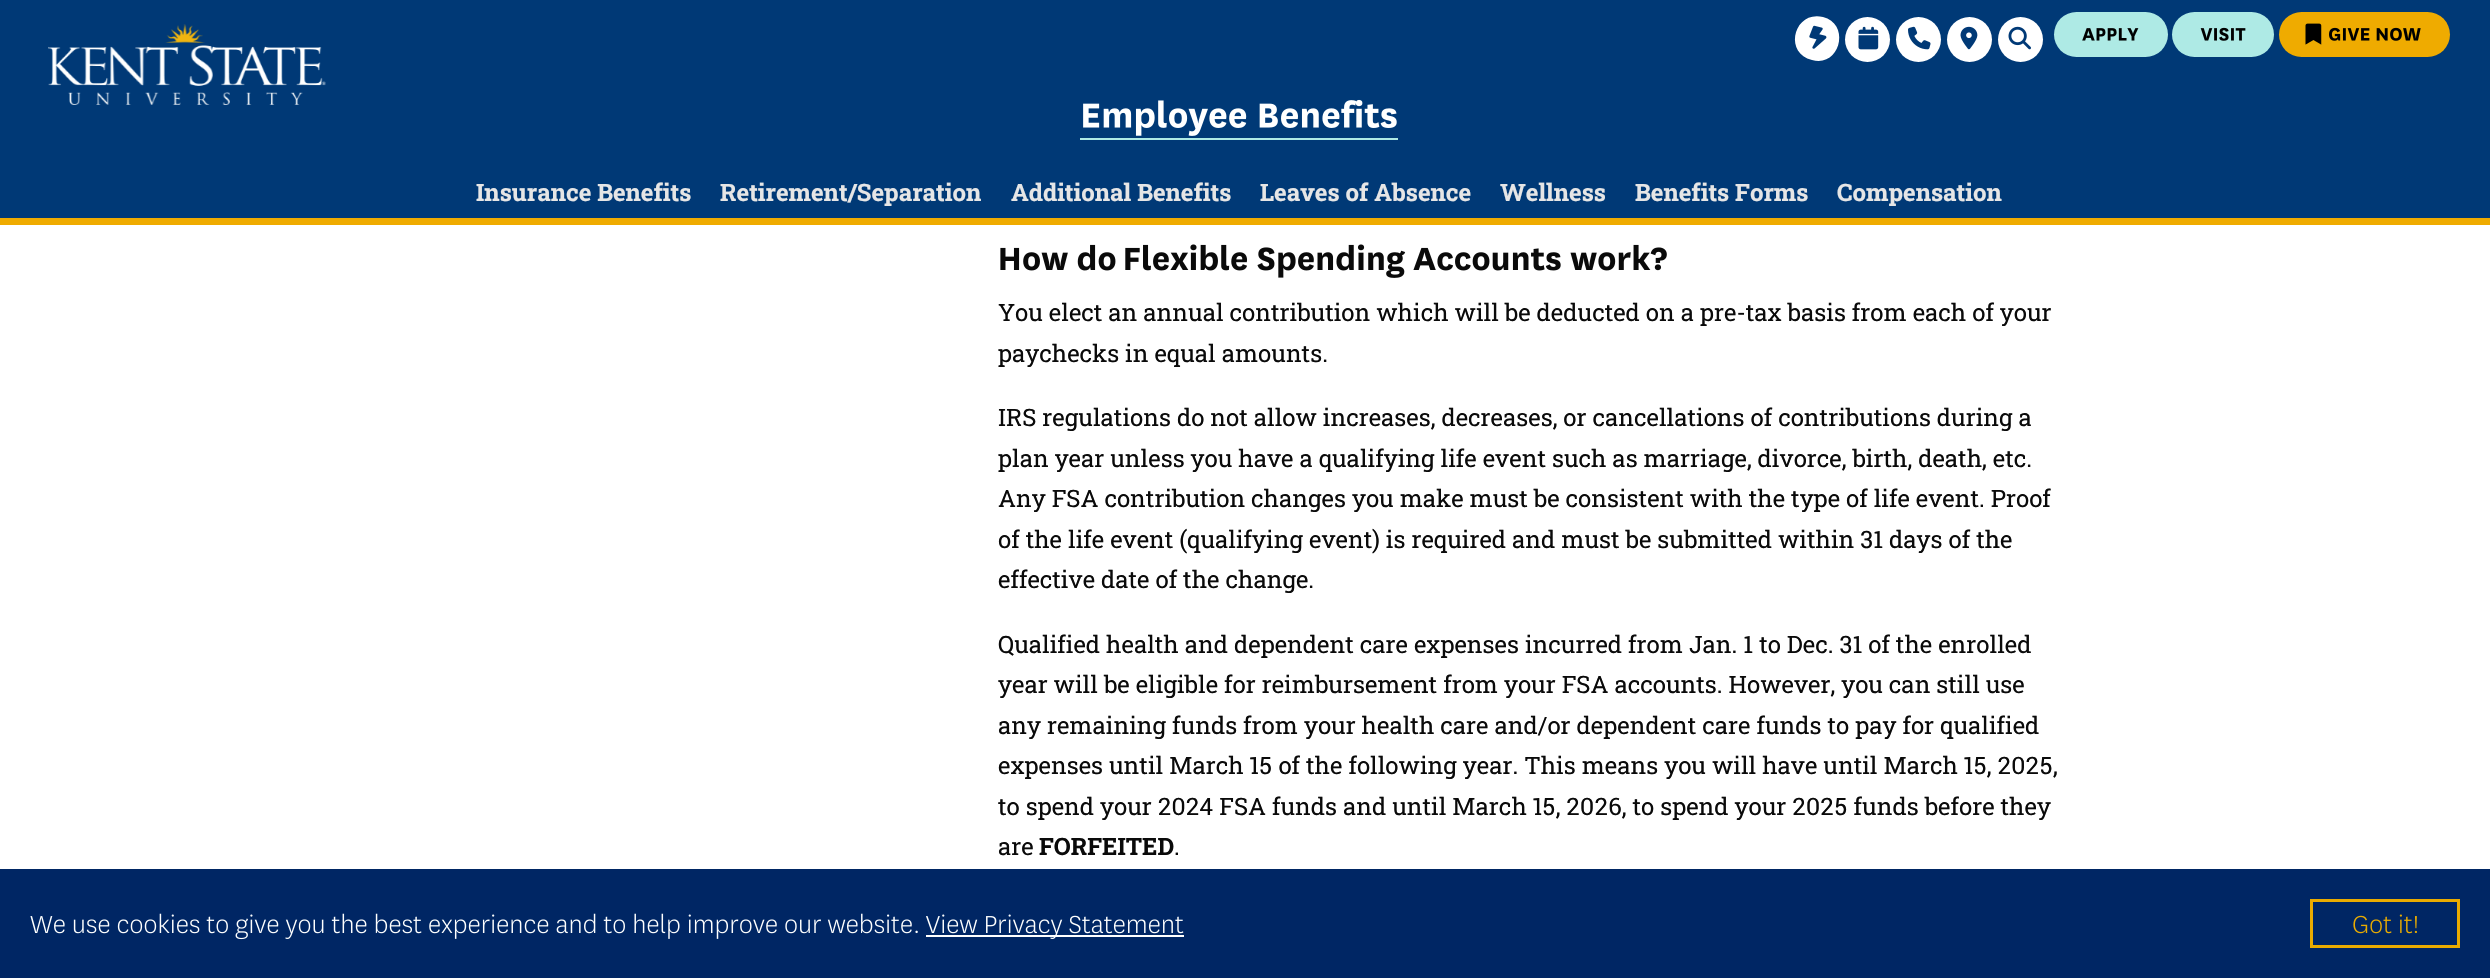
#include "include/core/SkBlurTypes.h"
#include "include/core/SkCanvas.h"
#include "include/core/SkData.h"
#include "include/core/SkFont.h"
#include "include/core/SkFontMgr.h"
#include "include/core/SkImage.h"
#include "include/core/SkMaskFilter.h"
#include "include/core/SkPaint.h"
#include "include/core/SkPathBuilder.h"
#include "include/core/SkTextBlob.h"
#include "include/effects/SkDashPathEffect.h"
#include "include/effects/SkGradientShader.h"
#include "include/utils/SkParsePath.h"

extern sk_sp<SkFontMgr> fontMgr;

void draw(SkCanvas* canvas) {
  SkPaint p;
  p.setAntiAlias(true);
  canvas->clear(SK_ColorWHITE);
  p.setColor(SkColorSetRGB(0, 57, 118));
  canvas->drawRect(SkRect::MakeLTRB(0, 0, 2490, 218), p);
  p.setColor(SkColorSetRGB(239, 171, 0));
  canvas->drawRect(SkRect::MakeLTRB(0, 218, 2490, 225), p);
  canvas->drawImageRect(SkImages::DeferredFromEncodedData(SkData::MakeFromFileName("images/1.png")), SkRect::MakeLTRB(48, 24, 326, 105), SkSamplingOptions());
  p.setColor(SK_ColorWHITE);
  canvas->drawPath(SkPathBuilder().moveTo(1823, 17).cubicTo(1851, 24, 1840, 68, 1812, 60).cubicTo(1783, 53, 1794, 10, 1823, 17).close().detach(), p);
  canvas->drawImageRect(SkImages::DeferredFromEncodedData(SkData::MakeFromFileName("images/2.png")), SkRect::MakeLTRB(1809, 25, 1827, 49), SkSamplingOptions());
  canvas->drawCircle(1867.5f, 39.5f, 22.5f, p);
  canvas->drawImageRect(SkImages::DeferredFromEncodedData(SkData::MakeFromFileName("images/3.png")), SkRect::MakeLTRB(1858, 26, 1879, 50), SkSamplingOptions());
  canvas->drawCircle(1918.5f, 39.5f, 22.5f, p);
  canvas->drawImageRect(SkImages::DeferredFromEncodedData(SkData::MakeFromFileName("images/4.png")), SkRect::MakeLTRB(1908, 26, 1931, 50), SkSamplingOptions());
  canvas->drawCircle(1969.5f, 39.5f, 22.5f, p);
  canvas->drawImageRect(SkImages::DeferredFromEncodedData(SkData::MakeFromFileName("images/5.png")), SkRect::MakeLTRB(1960, 26, 1978, 50), SkSamplingOptions());
  canvas->drawCircle(2020.5f, 39.5f, 22.5f, p);
  canvas->drawImageRect(SkImages::DeferredFromEncodedData(SkData::MakeFromFileName("images/6.png")), SkRect::MakeLTRB(2008, 26, 2031, 50), SkSamplingOptions());
  p.setColor(SkColorSetRGB(174, 234, 229));
  canvas->drawRoundRect(SkRect::MakeLTRB(2054, 12, 2168, 57), 22.5f, 22.5f, p);
  canvas->drawImageRect(SkImages::DeferredFromEncodedData(SkData::MakeFromFileName("images/7.png")), SkRect::MakeLTRB(2082, 28, 2139, 41), SkSamplingOptions());
  canvas->drawRoundRect(SkRect::MakeLTRB(2172, 12, 2274, 57), 22.5f, 22.5f, p);
  canvas->drawImageRect(SkImages::DeferredFromEncodedData(SkData::MakeFromFileName("images/8.png")), SkRect::MakeLTRB(2200, 27, 2246, 41), SkSamplingOptions());
  p.setColor(SkColorSetRGB(239, 171, 0));
  canvas->drawRoundRect(SkRect::MakeLTRB(2279, 12, 2450, 57), 22.5f, 22.5f, p);
  canvas->drawImageRect(SkImages::DeferredFromEncodedData(SkData::MakeFromFileName("images/9.png")), SkRect::MakeLTRB(2305, 23, 2322, 45), SkSamplingOptions());
  canvas->drawImageRect(SkImages::DeferredFromEncodedData(SkData::MakeFromFileName("images/10.png")), SkRect::MakeLTRB(2329, 27, 2421, 41), SkSamplingOptions());
  canvas->drawImageRect(SkImages::DeferredFromEncodedData(SkData::MakeFromFileName("images/11.png")), SkRect::MakeLTRB(1083, 99, 1397, 136), SkSamplingOptions());
  p.setColor(SkColorSetRGB(174, 234, 229));
  canvas->drawRect(SkRect::MakeLTRB(1080, 138, 1398, 140), p);
  canvas->drawImageRect(SkImages::DeferredFromEncodedData(SkData::MakeFromFileName("images/12.png")), SkRect::MakeLTRB(1000, 244, 1667, 278), SkSamplingOptions());
  p.setColor(SkColorSetRGB(0, 38, 100));
  canvas->drawRect(SkRect::MakeLTRB(0, 869, 2490, 978), p);
  canvas->drawImageRect(SkImages::DeferredFromEncodedData(SkData::MakeFromFileName("images/13.png")), SkRect::MakeLTRB(30, 913, 918, 940), SkSamplingOptions());
  p.setColor(SK_ColorWHITE);
  canvas->drawRect(SkRect::MakeLTRB(926, 935, 1184, 937), p);
  canvas->drawImageRect(SkImages::DeferredFromEncodedData(SkData::MakeFromFileName("images/14.png")), SkRect::MakeLTRB(926, 914, 1184, 939), SkSamplingOptions());
  p.setStyle(SkPaint::kStroke_Style);
  p.setStrokeWidth(3);
  p.setColor(SkColorSetRGB(234, 171, 0));
  canvas->drawRect(SkRect::MakeLTRB(2311.5f, 900.5f, 2458.5f, 946.5f), p);
  canvas->drawImageRect(SkImages::DeferredFromEncodedData(SkData::MakeFromFileName("images/15.png")), SkRect::MakeLTRB(2353, 914, 2417, 934), SkSamplingOptions());
  SkFont font1(fontMgr->matchFamilyStyle("Roboto Slab", SkFontStyle::Bold()), 24);
  font1.setSubpixel(true);
  p.setStyle(SkPaint::kFill_Style);
  p.setColor(SkColorSetRGB(230, 230, 230));
  canvas->drawString("Insurance Benefits", 476, 201, font1, p);
  canvas->drawString("Retirement/Separation", 720, 201, font1, p);
  canvas->drawString("Additional Benefits", 1011, 201, font1, p);
  canvas->drawString("Leaves of Absence", 1260, 201, font1, p);
  canvas->drawString("Wellness", 1500, 201, font1, p);
  canvas->drawString("Benefits Forms", 1635, 201, font1, p);
  canvas->drawString("Compensation", 1837, 201, font1, p);
  SkFont font2(fontMgr->matchFamilyStyle("Roboto Slab", SkFontStyle::Normal()), 24);
  font2.setSubpixel(true);
  p.setColor(SkColorSetRGB(10, 10, 10));
  canvas->drawString("You elect an annual contribution which will be deducted on a pre-tax basis from each of your", 998, 321, font2, p);
  canvas->drawString("paychecks in equal amounts.", 998, 362, font2, p);
  canvas->drawString("IRS regulations do not allow increases, decreases, or cancellations of contributions during a", 998, 426, font2, p);
  canvas->drawString("plan year unless you have a qualifying life event such as marriage, divorce, birth, death, etc.", 998, 467, font2, p);
  canvas->drawString("Any FSA contribution changes you make must be consistent with the type of life event. Proof", 998, 507, font2, p);
  canvas->drawString("of the life event (qualifying event) is required and must be submitted within 31 days of the", 998, 548, font2, p);
  canvas->drawString("effective date of the change.", 998, 588, font2, p);
  canvas->drawString("Qualified health and dependent care expenses incurred from Jan. 1 to Dec. 31 of the enrolled", 998, 653, font2, p);
  canvas->drawString("year will be eligible for reimbursement from your FSA accounts. However, you can still use", 998, 693, font2, p);
  canvas->drawString("any remaining funds from your health care and/or dependent care funds to pay for qualified", 998, 734, font2, p);
  SkFont font3(fontMgr->matchFamilyStyle("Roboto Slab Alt", SkFontStyle::Normal()), 24);
  font3.setSubpixel(true);
  canvas->drawString("expenses until March 15 of the following year. This means you will have until March 15, 2025,", 998, 774, font3, p);
  canvas->drawString("to spend your 2024 FSA funds and until March 15, 2026, to spend your 2025 funds before they", 998, 815, font3, p);
  canvas->drawString("are", 998, 855, font2, p);
  canvas->drawString("FORFEITED", 1039, 855, font1, p);
  canvas->drawString(".", 1174, 855, font2, p);
}
